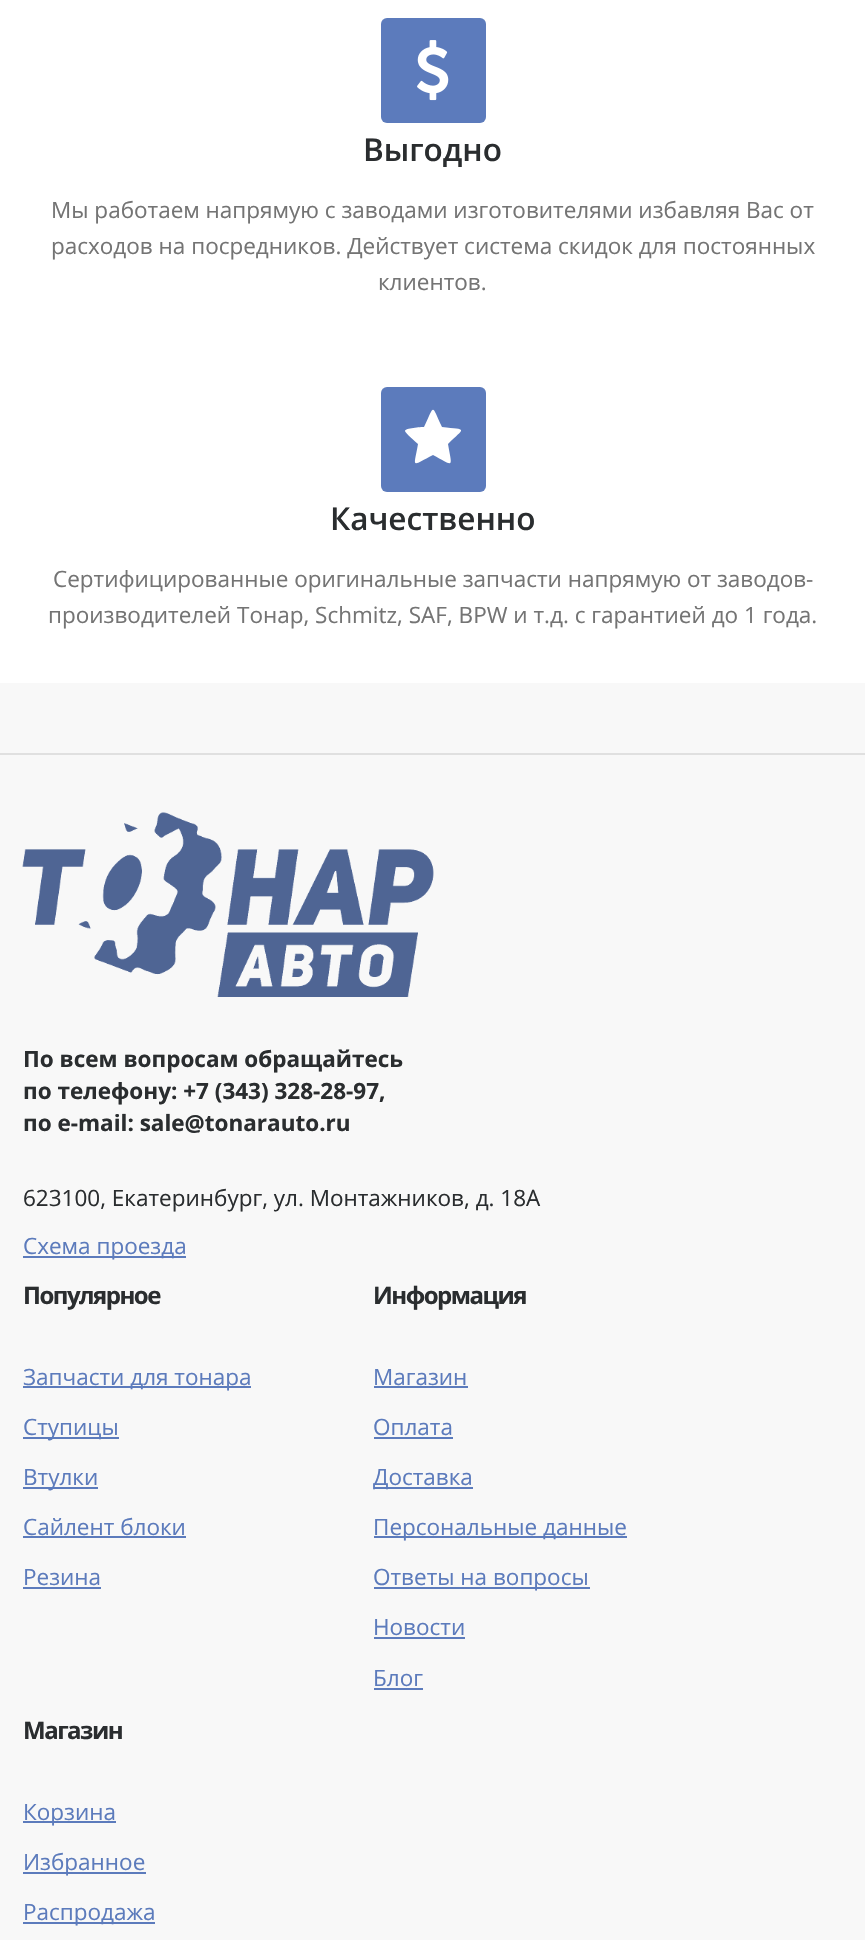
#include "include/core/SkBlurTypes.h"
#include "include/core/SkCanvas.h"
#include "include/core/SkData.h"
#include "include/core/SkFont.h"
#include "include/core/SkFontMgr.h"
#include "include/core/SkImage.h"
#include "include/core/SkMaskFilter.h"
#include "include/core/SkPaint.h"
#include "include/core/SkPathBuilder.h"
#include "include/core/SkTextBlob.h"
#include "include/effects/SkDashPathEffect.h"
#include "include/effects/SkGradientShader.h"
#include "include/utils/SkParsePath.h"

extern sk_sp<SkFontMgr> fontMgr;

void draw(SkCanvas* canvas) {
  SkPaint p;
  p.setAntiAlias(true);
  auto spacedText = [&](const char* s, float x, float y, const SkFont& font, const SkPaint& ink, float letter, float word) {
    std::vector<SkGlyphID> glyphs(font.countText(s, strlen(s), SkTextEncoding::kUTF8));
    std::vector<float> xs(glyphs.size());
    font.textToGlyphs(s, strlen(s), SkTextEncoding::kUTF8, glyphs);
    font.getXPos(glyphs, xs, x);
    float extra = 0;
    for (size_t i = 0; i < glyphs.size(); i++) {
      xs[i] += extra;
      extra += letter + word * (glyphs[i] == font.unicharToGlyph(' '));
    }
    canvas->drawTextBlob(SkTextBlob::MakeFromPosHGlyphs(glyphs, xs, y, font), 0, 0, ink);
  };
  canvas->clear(SkColorSetRGB(248, 248, 248));
  p.setColor(SK_ColorWHITE);
  canvas->drawRect(SkRect::MakeLTRB(0, 0, 865, 683), p);
  p.setColor(SkColorSetRGB(92, 123, 188));
  canvas->drawRoundRect(SkRect::MakeLTRB(381, 18, 486, 123), 6, 6, p);
  canvas->drawImageRect(SkImages::DeferredFromEncodedData(SkData::MakeFromFileName("images/1.png")), SkRect::MakeLTRB(417, 40, 449, 101), SkSamplingOptions());
  canvas->drawRoundRect(SkRect::MakeLTRB(381, 387, 486, 492), 6, 6, p);
  p.setColor(SK_ColorWHITE);
  canvas->drawPath(SkPathBuilder().moveTo(405, 431).cubicTo(405, 428, 421, 427, 424, 427).cubicTo(435, 404, 431, 404, 442, 427).cubicTo(468, 430, 465, 427, 448, 444).cubicTo(452, 468, 455, 467, 433, 455).cubicTo(410, 467, 414, 468, 418, 444).cubicTo(416, 442, 405, 433, 405, 431).close().detach(), p);
  p.setColor(SkColorSetRGB(224, 224, 224));
  canvas->drawRect(SkRect::MakeLTRB(0, 753, 865, 755), p);
  canvas->drawImageRect(SkImages::DeferredFromEncodedData(SkData::MakeFromFileName("images/2.png")), SkRect::MakeLTRB(22, 812, 434, 997), SkSamplingOptions());
  p.setColor(SkColorSetRGB(92, 123, 188));
  canvas->drawRect(SkRect::MakeLTRB(23, 1256, 186, 1258), p);
  canvas->drawRect(SkRect::MakeLTRB(23, 1386, 251, 1388), p);
  canvas->drawRect(SkRect::MakeLTRB(23, 1437, 119, 1439), p);
  canvas->drawRect(SkRect::MakeLTRB(23, 1487, 98, 1489), p);
  canvas->drawRect(SkRect::MakeLTRB(23, 1536, 186, 1538), p);
  canvas->drawRect(SkRect::MakeLTRB(23, 1587, 101, 1589), p);
  canvas->drawRect(SkRect::MakeLTRB(374, 1386, 468, 1388), p);
  canvas->drawRect(SkRect::MakeLTRB(374, 1437, 453, 1439), p);
  canvas->drawRect(SkRect::MakeLTRB(374, 1487, 473, 1489), p);
  canvas->drawRect(SkRect::MakeLTRB(374, 1536, 627, 1538), p);
  canvas->drawRect(SkRect::MakeLTRB(374, 1587, 590, 1589), p);
  canvas->drawRect(SkRect::MakeLTRB(374, 1637, 465, 1639), p);
  canvas->drawRect(SkRect::MakeLTRB(374, 1688, 423, 1690), p);
  canvas->drawRect(SkRect::MakeLTRB(23, 1821, 116, 1823), p);
  canvas->drawRect(SkRect::MakeLTRB(23, 1872, 146, 1874), p);
  canvas->drawRect(SkRect::MakeLTRB(23, 1922, 155, 1924), p);
  SkFont font1(fontMgr->matchFamilyStyle("Open Sans", SkFontStyle(600, SkFontStyle::kNormal_Width, SkFontStyle::kUpright_Slant)), 31.5f);
  font1.setSubpixel(true);
  p.setColor(SkColorSetRGB(42, 45, 47));
  canvas->drawString("Выгодно", 363, 161, font1, p);
  SkFont font2(fontMgr->matchFamilyStyle("Open Sans", SkFontStyle::Normal()), 22.5f);
  font2.setSubpixel(true);
  p.setColor(SkColorSetRGB(116, 116, 116));
  canvas->drawString("Мы работаем напрямую с заводами изготовителями избавляя Вас от", 51, 218, font2, p);
  canvas->drawString("расходов на посредников. Действует система скидок для постоянных", 51, 254, font2, p);
  canvas->drawString("клиентов.", 378, 290, font2, p);
  p.setColor(SkColorSetRGB(42, 45, 47));
  canvas->drawString("Качественно", 330, 530, font1, p);
  p.setColor(SkColorSetRGB(116, 116, 116));
  canvas->drawString("Сертифицированные оригинальные запчасти напрямую от заводов-", 53, 587, font2, p);
  canvas->drawString("производителей Тонар, Schmitz, SAF, BPW и т.д. с гарантией до 1 года.", 48, 623, font2, p);
  SkFont font3(fontMgr->matchFamilyStyle("Open Sans", SkFontStyle::Bold()), 22.5f);
  font3.setSubpixel(true);
  p.setColor(SkColorSetRGB(42, 45, 47));
  canvas->drawString("По всем вопросам обращайтесь", 23, 1067, font3, p);
  canvas->drawString("по телефону: +7 (343) 328-28-97,", 23, 1099, font3, p);
  canvas->drawString("по e-mail: sale@tonarauto.ru", 23, 1131, font3, p);
  canvas->drawString("623100, Екатеринбург, ул. Монтажников, д. 18А", 23, 1206, font2, p);
  p.setColor(SkColorSetRGB(92, 123, 188));
  canvas->drawString("Схема проезда", 23, 1254, font2, p);
  SkFont font4(fontMgr->matchFamilyStyle("Open Sans", SkFontStyle::Bold()), 24);
  font4.setSubpixel(true);
  p.setColor(SkColorSetRGB(42, 45, 47));
  spacedText("Популярное", 23, 1304, font4, p, -1.5f, 0);
  p.setColor(SkColorSetRGB(92, 123, 188));
  canvas->drawString("Запчасти для тонара", 23, 1385, font2, p);
  canvas->drawString("Ступицы", 23, 1435, font2, p);
  canvas->drawString("Втулки", 23, 1485, font2, p);
  canvas->drawString("Сайлент блоки", 23, 1535, font2, p);
  canvas->drawString("Резина", 23, 1585, font2, p);
  p.setColor(SkColorSetRGB(42, 45, 47));
  spacedText("Информация", 373, 1304, font4, p, -1.5f, 0);
  p.setColor(SkColorSetRGB(92, 123, 188));
  canvas->drawString("Магазин", 373, 1385, font2, p);
  canvas->drawString("Оплата", 373, 1435, font2, p);
  canvas->drawString("Доставка", 373, 1485, font2, p);
  canvas->drawString("Персональные данные", 373, 1535, font2, p);
  canvas->drawString("Ответы на вопросы", 373, 1585, font2, p);
  canvas->drawString("Новости", 373, 1635, font2, p);
  canvas->drawString("Блог", 373, 1686, font2, p);
  p.setColor(SkColorSetRGB(42, 45, 47));
  spacedText("Магазин", 23, 1739, font4, p, -1.5f, 0);
  p.setColor(SkColorSetRGB(92, 123, 188));
  canvas->drawString("Корзина", 23, 1820, font2, p);
  canvas->drawString("Избранное", 23, 1870, font2, p);
  canvas->drawString("Распродажа", 23, 1920, font2, p);
}
